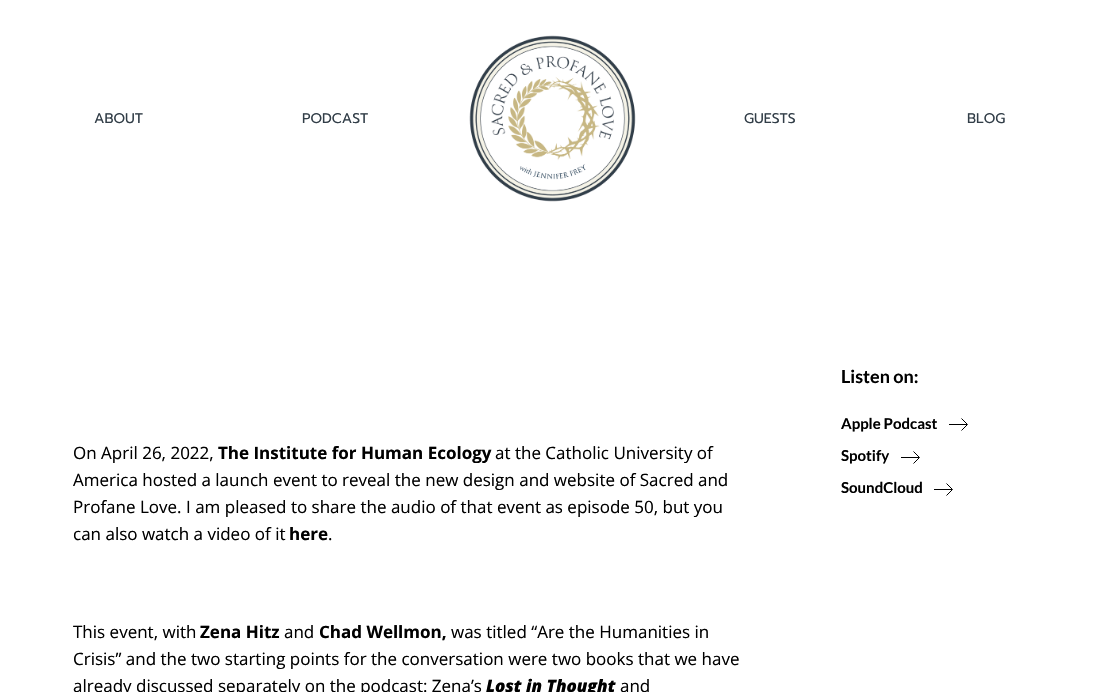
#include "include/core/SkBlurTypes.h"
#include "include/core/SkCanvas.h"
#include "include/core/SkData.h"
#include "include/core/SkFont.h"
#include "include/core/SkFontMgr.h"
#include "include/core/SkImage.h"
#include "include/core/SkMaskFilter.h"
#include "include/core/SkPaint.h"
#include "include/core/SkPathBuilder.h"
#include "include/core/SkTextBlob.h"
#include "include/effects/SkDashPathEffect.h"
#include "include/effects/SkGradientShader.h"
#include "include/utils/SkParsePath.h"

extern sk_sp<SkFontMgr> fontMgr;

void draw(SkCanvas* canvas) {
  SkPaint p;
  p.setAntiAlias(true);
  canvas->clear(SK_ColorWHITE);
  canvas->drawImageRect(SkImages::DeferredFromEncodedData(SkData::MakeFromFileName("images/1.png")), SkRect::MakeLTRB(469, 35, 636, 202), SkSamplingOptions());
  p.setColor(SK_ColorBLACK);
  canvas->drawRect(SkRect::MakeLTRB(949, 424, 967, 425), p);
  p.setStyle(SkPaint::kStroke_Style);
  p.setStrokeWidth(1);
  canvas->drawPath(SkPathBuilder().moveTo(961.5f, 418.5f).lineTo(967.5f, 424.5f).lineTo(961.5f, 430.5f).detach(), p);
  p.setStyle(SkPaint::kFill_Style);
  canvas->drawRect(SkRect::MakeLTRB(901, 457, 919, 458), p);
  p.setStyle(SkPaint::kStroke_Style);
  canvas->drawPath(SkPathBuilder().moveTo(913.5f, 451.5f).lineTo(919.5f, 457.5f).lineTo(913.5f, 463.5f).detach(), p);
  p.setStyle(SkPaint::kFill_Style);
  canvas->drawRect(SkRect::MakeLTRB(934, 489, 952, 490), p);
  p.setStyle(SkPaint::kStroke_Style);
  canvas->drawPath(SkPathBuilder().moveTo(946.5f, 483.5f).lineTo(952.5f, 489.5f).lineTo(946.5f, 495.5f).detach(), p);
  SkFont font1(fontMgr->matchFamilyStyle("Prompt", SkFontStyle::Normal()), 14);
  font1.setSubpixel(true);
  p.setStyle(SkPaint::kFill_Style);
  p.setColor(SkColorSetRGB(50, 62, 72));
  canvas->drawString("ABOUT", 94, 123, font1, p);
  canvas->drawString("PODCAST", 302, 123, font1, p);
  canvas->drawString("GUESTS", 744, 123, font1, p);
  canvas->drawString("BLOG", 967, 123, font1, p);
  SkFont font2(fontMgr->matchFamilyStyle("Lato", SkFontStyle::Bold()), 18);
  font2.setSubpixel(true);
  p.setColor(SK_ColorBLACK);
  canvas->drawString("Listen on:", 841, 383, font2, p);
  SkFont font3(fontMgr->matchFamilyStyle("Lato", SkFontStyle::Bold()), 15);
  font3.setSubpixel(true);
  canvas->drawString("Apple Podcast", 841, 429, font3, p);
  canvas->drawString("Spotify", 841, 461, font3, p);
  canvas->drawString("SoundCloud", 841, 493, font3, p);
  SkFont font4(fontMgr->matchFamilyStyle("Open Sans", SkFontStyle::Normal()), 17);
  font4.setSubpixel(true);
  canvas->drawString("On April 26, 2022,", 73, 459, font4, p);
  SkFont font5(fontMgr->matchFamilyStyle("Open Sans", SkFontStyle::Bold()), 17);
  font5.setSubpixel(true);
  canvas->drawString("The Institute for Human Ecology", 218, 459, font5, p);
  canvas->drawString("at the Catholic University of", 495, 459, font4, p);
  canvas->drawString("America hosted a launch event to reveal the new design and website of Sacred and", 73, 486, font4, p);
  canvas->drawString("Profane Love. I am pleased to share the audio of that event as episode 50, but you", 73, 513, font4, p);
  canvas->drawString("can also watch a video of it", 73, 540, font4, p);
  canvas->drawString("here", 289, 540, font5, p);
  canvas->drawString(".", 328, 540, font4, p);
  canvas->drawString("This event, with", 73, 638, font4, p);
  canvas->drawString("Zena Hitz", 200, 638, font5, p);
  canvas->drawString("and", 284, 638, font4, p);
  canvas->drawString("Chad Wellmon,", 319, 638, font5, p);
  canvas->drawString("was titled “Are the Humanities in", 451, 638, font4, p);
  canvas->drawString("Crisis” and the two starting points for the conversation were two books that we have", 73, 665, font4, p);
  canvas->drawString("already discussed separately on the podcast: Zena’s", 73, 692, font4, p);
  SkFont font6(fontMgr->matchFamilyStyle("Open Sans", SkFontStyle(800, SkFontStyle::kNormal_Width, SkFontStyle::kItalic_Slant)), 17);
  font6.setSubpixel(true);
  canvas->drawString("Lost in Thought", 486, 692, font6, p);
  canvas->drawString("and", 620, 692, font4, p);
}
